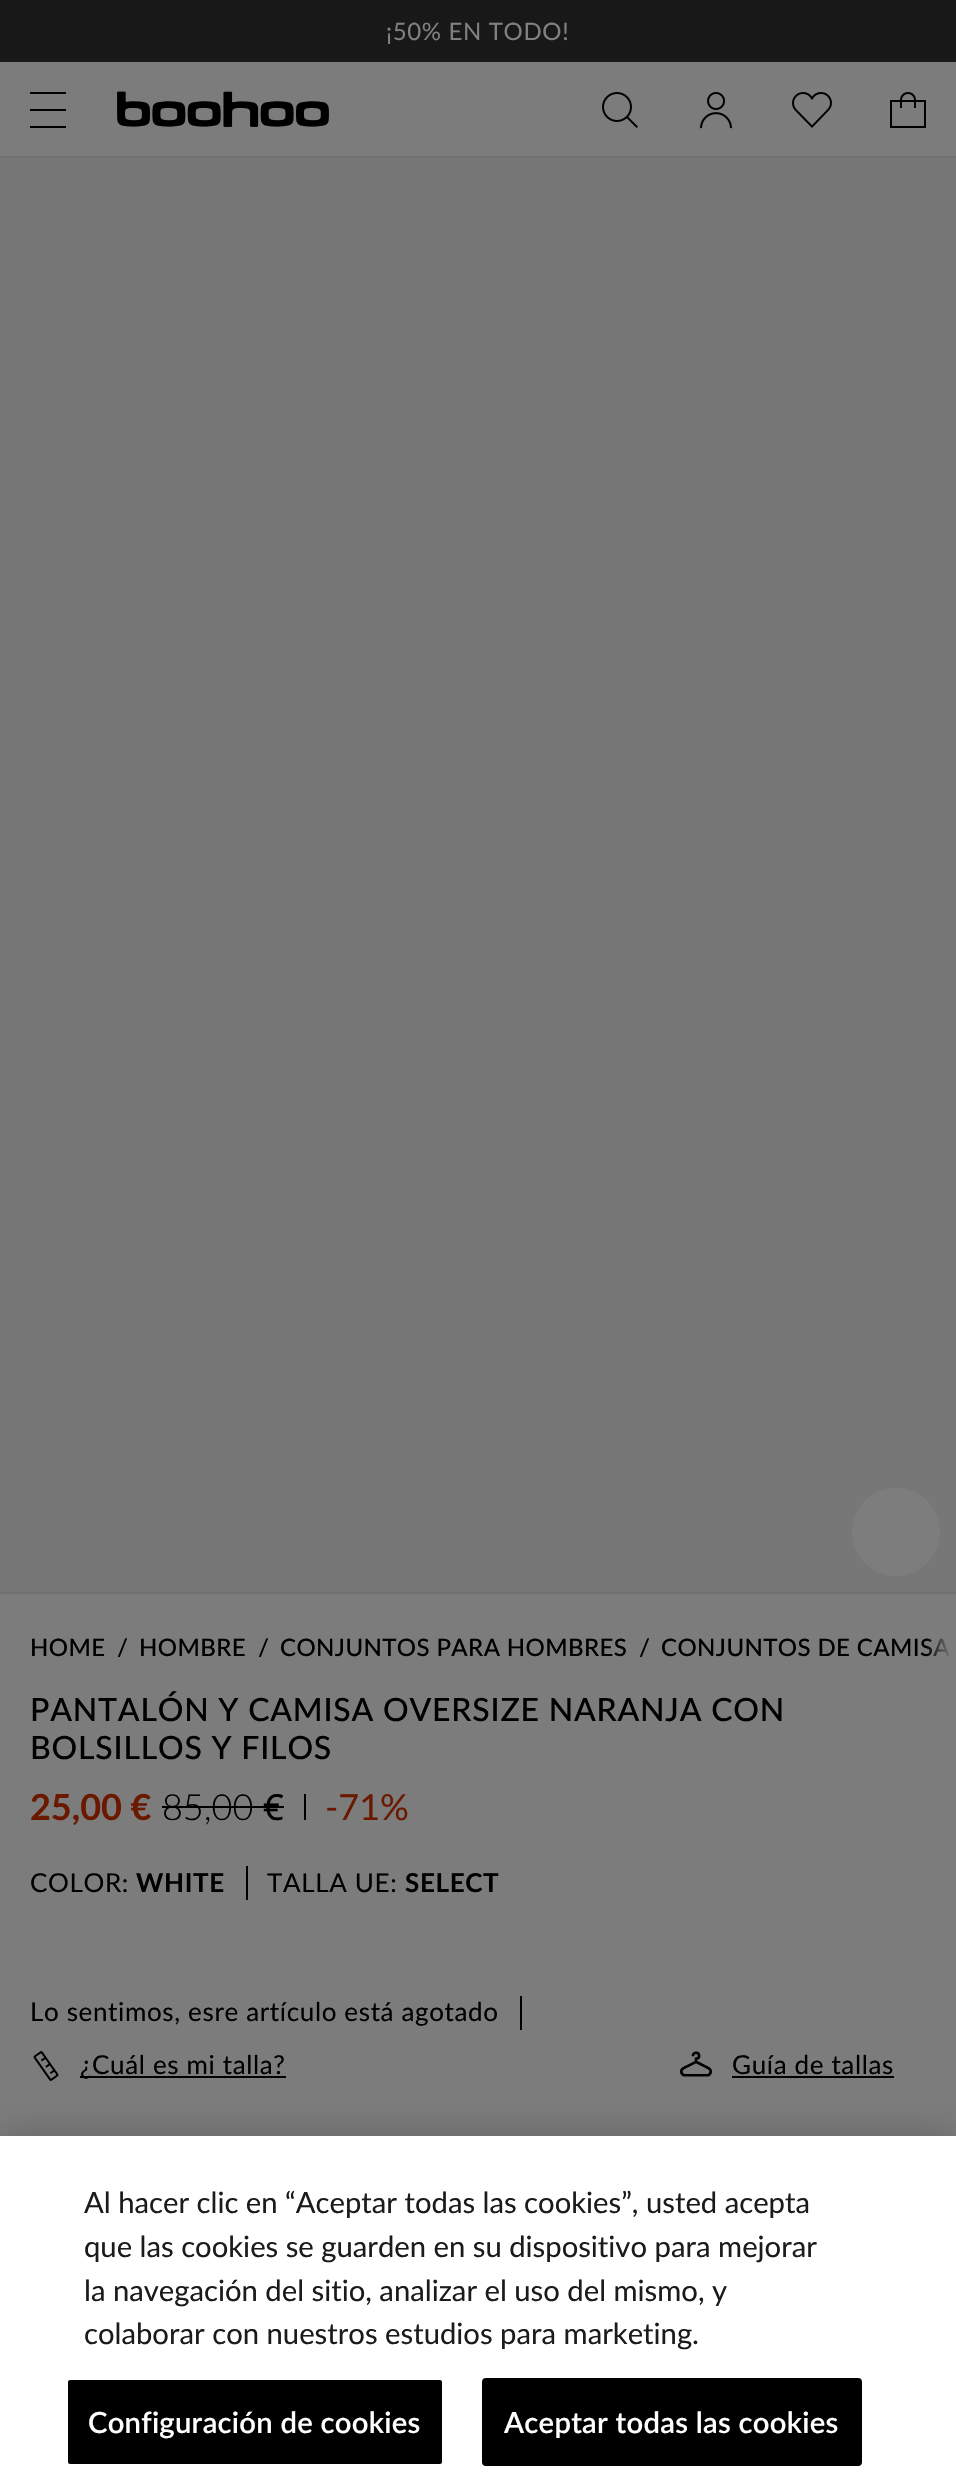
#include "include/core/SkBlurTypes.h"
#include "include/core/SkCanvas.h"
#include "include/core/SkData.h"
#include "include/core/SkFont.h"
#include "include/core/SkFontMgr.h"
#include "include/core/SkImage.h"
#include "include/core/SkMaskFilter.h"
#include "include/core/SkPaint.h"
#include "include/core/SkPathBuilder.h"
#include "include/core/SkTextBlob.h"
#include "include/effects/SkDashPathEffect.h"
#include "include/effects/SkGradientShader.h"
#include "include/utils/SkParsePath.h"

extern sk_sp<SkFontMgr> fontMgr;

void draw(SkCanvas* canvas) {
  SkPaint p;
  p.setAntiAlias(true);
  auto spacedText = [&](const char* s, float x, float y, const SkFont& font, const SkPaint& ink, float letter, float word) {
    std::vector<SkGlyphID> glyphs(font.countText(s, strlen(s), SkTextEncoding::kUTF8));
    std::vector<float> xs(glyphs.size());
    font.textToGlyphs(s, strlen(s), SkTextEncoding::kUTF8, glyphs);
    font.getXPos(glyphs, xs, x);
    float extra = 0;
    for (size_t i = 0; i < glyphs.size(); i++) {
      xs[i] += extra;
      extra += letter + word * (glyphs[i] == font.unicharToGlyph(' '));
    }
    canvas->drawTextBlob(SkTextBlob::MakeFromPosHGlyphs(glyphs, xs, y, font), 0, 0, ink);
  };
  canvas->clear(SkColorSetRGB(124, 124, 124));
  p.setColor(SkColorSetRGB(24, 24, 24));
  canvas->drawRect(SkRect::MakeLTRB(0, 0, 956, 62), p);
  p.setColor(SK_ColorBLACK);
  canvas->drawRect(SkRect::MakeLTRB(30, 92, 66, 94), p);
  canvas->drawRect(SkRect::MakeLTRB(30, 126, 66, 128), p);
  canvas->drawRect(SkRect::MakeLTRB(30, 109, 66, 111), p);
  canvas->drawImageRect(SkImages::DeferredFromEncodedData(SkData::MakeFromFileName("images/1.png")), SkRect::MakeLTRB(117, 91, 329, 127), SkSamplingOptions());
  canvas->drawImageRect(SkImages::DeferredFromEncodedData(SkData::MakeFromFileName("images/2.png")), SkRect::MakeLTRB(602, 92, 638, 128), SkSamplingOptions());
  canvas->drawImageRect(SkImages::DeferredFromEncodedData(SkData::MakeFromFileName("images/3.png")), SkRect::MakeLTRB(700, 92, 732, 129), SkSamplingOptions());
  canvas->drawImageRect(SkImages::DeferredFromEncodedData(SkData::MakeFromFileName("images/4.png")), SkRect::MakeLTRB(792, 92, 832, 128), SkSamplingOptions());
  canvas->drawImageRect(SkImages::DeferredFromEncodedData(SkData::MakeFromFileName("images/5.png")), SkRect::MakeLTRB(890, 92, 926, 128), SkSamplingOptions());
  p.setStyle(SkPaint::kStroke_Style);
  p.setStrokeWidth(2);
  p.setColor(SkColorSetRGB(111, 111, 111));
  canvas->drawRect(SkRect::MakeLTRB(-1, 157, 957, 1593), p);
  p.setStyle(SkPaint::kFill_Style);
  p.setColor(SkColorSetRGB(120, 119, 120));
  canvas->drawRect(SkRect::MakeLTRB(0, 158, 956, 1592), p);
  p.setColor(SkColorSetRGB(125, 125, 125));
  canvas->drawCircle(896, 1532, 44, p);
  p.setColor(SK_ColorBLACK);
  canvas->drawRect(SkRect::MakeLTRB(162, 1806, 284, 1808), p);
  canvas->drawRect(SkRect::MakeLTRB(304, 1794, 306, 1820), p);
  canvas->drawRect(SkRect::MakeLTRB(246, 1866, 248, 1900), p);
  canvas->drawRect(SkRect::MakeLTRB(520, 1996, 522, 2030), p);
  canvas->drawImageRect(SkImages::DeferredFromEncodedData(SkData::MakeFromFileName("images/6.png")), SkRect::MakeLTRB(33, 2051, 59, 2081), SkSamplingOptions());
  canvas->drawRect(SkRect::MakeLTRB(80, 2076, 286, 2078), p);
  canvas->drawImageRect(SkImages::DeferredFromEncodedData(SkData::MakeFromFileName("images/7.png")), SkRect::MakeLTRB(680, 2051, 712, 2077), SkSamplingOptions());
  canvas->drawRect(SkRect::MakeLTRB(732, 2076, 894, 2078), p);
  p.setColor(SkColorSetARGB(51, 0, 0, 0));
  p.setMaskFilter(SkMaskFilter::MakeBlur(kNormal_SkBlurStyle, 18));
  canvas->drawRect(SkRect::MakeLTRB(0, 2136, 956, 2492), p);
  p.setMaskFilter(nullptr);
  p.setColor(SK_ColorWHITE);
  canvas->drawRect(SkRect::MakeLTRB(0, 2136, 956, 2492), p);
  p.setColor(SK_ColorBLACK);
  canvas->drawRoundRect(SkRect::MakeLTRB(67, 2379, 443, 2465), 3, 3, p);
  p.setStyle(SkPaint::kStroke_Style);
  p.setColor(SK_ColorWHITE);
  canvas->drawRoundRect(SkRect::MakeLTRB(67, 2379, 443, 2465), 3, 3, p);
  p.setStyle(SkPaint::kFill_Style);
  p.setColor(SK_ColorBLACK);
  canvas->drawRoundRect(SkRect::MakeLTRB(483, 2379, 861, 2465), 3, 3, p);
  p.setStyle(SkPaint::kStroke_Style);
  canvas->drawRoundRect(SkRect::MakeLTRB(483, 2379, 861, 2465), 3, 3, p);
  SkFont font1(fontMgr->matchFamilyStyle("Lato", SkFontStyle::Normal()), 24);
  font1.setSubpixel(true);
  p.setStyle(SkPaint::kFill_Style);
  p.setColor(SkColorSetRGB(128, 128, 128));
  spacedText("¡50% EN TODO!", 386, 40, font1, p, 0.65f, 0);
  SkFont font2(fontMgr->matchFamilyStyle("Lato", SkFontStyle(500, SkFontStyle::kNormal_Width, SkFontStyle::kUpright_Slant)), 24);
  font2.setSubpixel(true);
  p.setColor(SK_ColorBLACK);
  spacedText("HOME", 30, 1656, font2, p, 0.4f, 0);
  spacedText("/", 117, 1656, font2, p, 0.4f, 0);
  spacedText("HOMBRE", 139, 1656, font2, p, 0.4f, 0);
  spacedText("/", 258, 1656, font2, p, 0.4f, 0);
  spacedText("CONJUNTOS PARA HOMBRES", 280, 1656, font2, p, 0.4f, 0);
  spacedText("/", 639, 1656, font2, p, 0.4f, 0);
  spacedText("CONJUNTOS DE CAMISA", 661, 1656, font2, p, 0.4f, 0);
  {
    const SkColor colors[] = {SkColorSetRGB(124, 124, 124), SkColorSetARGB(0, 124, 124, 124)};
    const float stops[] = {0.15f, 1};
    const SkPoint ends[] = {{956, 1646}, {926, 1646}};
    p.setShader(SkGradientShader::MakeLinear(ends, colors, stops, 2, SkTileMode::kClamp));
    p.setAlpha(255);
  }
  canvas->drawRect(SkRect::MakeLTRB(927, 1638, 950, 1656), p);
  SkFont font3(fontMgr->matchFamilyStyle("Lato", SkFontStyle(500, SkFontStyle::kNormal_Width, SkFontStyle::kUpright_Slant)), 32);
  font3.setSubpixel(true);
  p.setShader(nullptr);
  p.setColor(SK_ColorBLACK);
  spacedText("PANTALÓN Y CAMISA OVERSIZE NARANJA CON", 30, 1721, font3, p, 0.8f, 0);
  spacedText("BOLSILLOS Y FILOS", 30, 1759, font3, p, 0.8f, 0);
  SkFont font4(fontMgr->matchFamilyStyle("Lato", SkFontStyle::Bold()), 36);
  font4.setSubpixel(true);
  p.setColor(SkColorSetRGB(106, 25, 0));
  canvas->drawString("25,00 €", 30, 1820, font4, p);
  SkFont font5(fontMgr->matchFamilyStyle("Lato", SkFontStyle(300, SkFontStyle::kNormal_Width, SkFontStyle::kUpright_Slant)), 36);
  font5.setSubpixel(true);
  p.setColor(SK_ColorBLACK);
  canvas->drawString("85,00", 162, 1820, font5, p);
  SkFont font6(fontMgr->matchFamilyStyle("Noto Sans", SkFontStyle::Normal()), 36);
  font6.setSubpixel(true);
  canvas->drawString("€", 263, 1820, font6, p);
  SkFont font7(fontMgr->matchFamilyStyle("Lato", SkFontStyle::Normal()), 36);
  font7.setSubpixel(true);
  p.setColor(SkColorSetRGB(106, 25, 0));
  canvas->drawString("-71%", 325, 1820, font7, p);
  SkFont font8(fontMgr->matchFamilyStyle("Lato", SkFontStyle::Normal()), 26);
  font8.setSubpixel(true);
  p.setColor(SK_ColorBLACK);
  spacedText("COLOR:", 30, 1892, font8, p, 0.65f, 0);
  SkFont font9(fontMgr->matchFamilyStyle("Lato", SkFontStyle::Bold()), 26);
  font9.setSubpixel(true);
  spacedText("WHITE", 136, 1892, font9, p, 0.65f, 0);
  spacedText("TALLA UE:", 267, 1892, font8, p, 0.65f, 0);
  spacedText("SELECT", 405, 1892, font9, p, 0.65f, 0);
  spacedText("Lo sentimos, esre artículo está agotado", 30, 2021, font8, p, 0.65f, 0);
  spacedText("¿Cuál es mi talla?", 80, 2074, font8, p, 0.65f, 0);
  spacedText("Guía de tallas", 732, 2074, font8, p, 0.65f, 0);
  SkFont font10(fontMgr->matchFamilyStyle("Lato", SkFontStyle::Normal()), 29.25f);
  font10.setSubpixel(true);
  p.setColor(SkColorSetRGB(27, 27, 27));
  canvas->drawString("Al hacer clic en “Aceptar todas las cookies”, usted acepta", 84, 2213, font10, p);
  canvas->drawString("que las cookies se guarden en su dispositivo para mejorar", 84, 2257, font10, p);
  canvas->drawString("la navegación del sitio, analizar el uso del mismo, y", 84, 2301, font10, p);
  canvas->drawString("colaborar con nuestros estudios para marketing.", 84, 2344, font10, p);
  SkFont font11(fontMgr->matchFamilyStyle("Lato", SkFontStyle(600, SkFontStyle::kNormal_Width, SkFontStyle::kUpright_Slant)), 29.25f);
  font11.setSubpixel(true);
  p.setColor(SK_ColorWHITE);
  spacedText("Configuración de cookies", 88, 2433, font11, p, 0.25f, 0);
  spacedText("Aceptar todas las cookies", 504, 2433, font11, p, 0.25f, 0);
}
